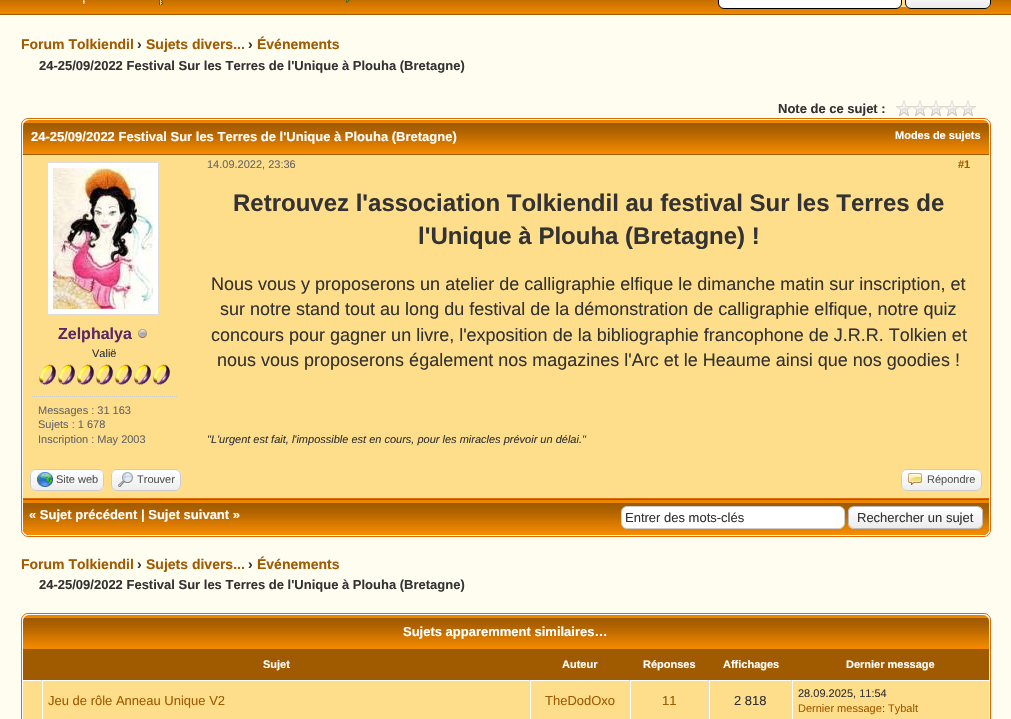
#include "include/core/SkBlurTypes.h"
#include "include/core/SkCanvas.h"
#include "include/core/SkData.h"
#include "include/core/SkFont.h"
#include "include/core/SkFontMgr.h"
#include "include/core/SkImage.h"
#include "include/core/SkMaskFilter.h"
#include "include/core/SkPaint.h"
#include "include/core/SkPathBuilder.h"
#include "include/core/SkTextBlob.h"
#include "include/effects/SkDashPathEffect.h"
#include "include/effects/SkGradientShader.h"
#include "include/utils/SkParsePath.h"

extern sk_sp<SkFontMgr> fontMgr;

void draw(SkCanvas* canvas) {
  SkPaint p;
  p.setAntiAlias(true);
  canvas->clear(SK_ColorWHITE);
  canvas->drawImageRect(SkImages::DeferredFromEncodedData(SkData::MakeFromFileName("images/1.png")), SkRect::MakeLTRB(0, 0, 1011, 14), SkSamplingOptions());
  p.setColor(SkColorSetRGB(160, 90, 0));
  canvas->drawRect(SkRect::MakeLTRB(0, 14, 1011, 15), p);
  canvas->drawImageRect(SkImages::DeferredFromEncodedData(SkData::MakeFromFileName("images/2.png")), SkRect::MakeLTRB(159, 0, 163, 5), SkSamplingOptions());
  canvas->drawImageRect(SkImages::DeferredFromEncodedData(SkData::MakeFromFileName("images/3.png")), SkRect::MakeLTRB(346, 0, 350, 3), SkSamplingOptions());
  p.setColor(SkColorSetRGB(255, 222, 139));
  canvas->drawRoundRect(SkRect::MakeLTRB(718, -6, 991, 7), 6, 6, p);
  p.setColor(SK_ColorWHITE);
  canvas->drawRoundRect(SkRect::MakeLTRB(718.5f, -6.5f, 901.5f, 8.5f), 5.5f, 5.5f, p);
  p.setStyle(SkPaint::kStroke_Style);
  p.setStrokeWidth(1);
  p.setColor(SK_ColorBLACK);
  canvas->drawRoundRect(SkRect::MakeLTRB(718.5f, -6.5f, 901.5f, 8.5f), 5.5f, 5.5f, p);
  canvas->drawImageRect(SkImages::DeferredFromEncodedData(SkData::MakeFromFileName("images/4.png")), SkRect::MakeLTRB(905, 0, 991, 9), SkSamplingOptions());
  canvas->drawRoundRect(SkRect::MakeLTRB(905.5f, -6.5f, 990.5f, 8.5f), 5.5f, 5.5f, p);
  p.setStyle(SkPaint::kFill_Style);
  p.setColor(SkColorSetRGB(255, 252, 240));
  canvas->drawRect(SkRect::MakeLTRB(0, 15, 1011, 719), p);
  canvas->drawImageRect(SkImages::DeferredFromEncodedData(SkData::MakeFromFileName("images/5.png")), SkRect::MakeLTRB(896, 100, 976, 116), SkSamplingOptions());
  p.setColor(SK_ColorWHITE);
  canvas->drawRoundRect(SkRect::MakeLTRB(21.5f, 118.5f, 990.5f, 536.5f), 6.5f, 6.5f, p);
  p.setStyle(SkPaint::kStroke_Style);
  p.setColor(SkColorSetRGB(221, 105, 0));
  canvas->drawRoundRect(SkRect::MakeLTRB(21.5f, 118.5f, 990.5f, 536.5f), 6.5f, 6.5f, p);
  canvas->drawImageRect(SkImages::DeferredFromEncodedData(SkData::MakeFromFileName("images/6.png")), SkRect::MakeLTRB(23, 120, 989, 154), SkSamplingOptions());
  p.setStyle(SkPaint::kFill_Style);
  p.setColor(SkColorSetRGB(160, 90, 0));
  canvas->drawRect(SkRect::MakeLTRB(23, 154, 989, 155), p);
  p.setColor(SkColorSetRGB(255, 222, 139));
  canvas->drawRect(SkRect::MakeLTRB(23, 155, 989, 498), p);
  p.setColor(SkColorSetRGB(221, 221, 221));
  canvas->drawRect(SkRect::MakeLTRB(187, 160, 188, 451), p);
  p.setColor(SK_ColorWHITE);
  canvas->drawRect(SkRect::MakeLTRB(47.5f, 162.5f, 158.5f, 314.5f), p);
  p.setStyle(SkPaint::kStroke_Style);
  p.setColor(SkColorSetRGB(221, 221, 221));
  canvas->drawRect(SkRect::MakeLTRB(47.5f, 162.5f, 158.5f, 314.5f), p);
  canvas->drawImageRect(SkImages::DeferredFromEncodedData(SkData::MakeFromFileName("images/7.png")), SkRect::MakeLTRB(53, 168, 153, 309), SkSamplingOptions());
  canvas->drawImageRect(SkImages::DeferredFromEncodedData(SkData::MakeFromFileName("images/8.png")), SkRect::MakeLTRB(138, 329, 147, 338), SkSamplingOptions());
  canvas->drawImageRect(SkImages::DeferredFromEncodedData(SkData::MakeFromFileName("images/9.png")), SkRect::MakeLTRB(39, 364, 56, 385), SkSamplingOptions());
  canvas->drawImageRect(SkImages::DeferredFromEncodedData(SkData::MakeFromFileName("images/9.png")), SkRect::MakeLTRB(58, 364, 75, 385), SkSamplingOptions());
  canvas->drawImageRect(SkImages::DeferredFromEncodedData(SkData::MakeFromFileName("images/9.png")), SkRect::MakeLTRB(77, 364, 94, 385), SkSamplingOptions());
  canvas->drawImageRect(SkImages::DeferredFromEncodedData(SkData::MakeFromFileName("images/9.png")), SkRect::MakeLTRB(96, 364, 113, 385), SkSamplingOptions());
  canvas->drawImageRect(SkImages::DeferredFromEncodedData(SkData::MakeFromFileName("images/9.png")), SkRect::MakeLTRB(115, 364, 132, 385), SkSamplingOptions());
  canvas->drawImageRect(SkImages::DeferredFromEncodedData(SkData::MakeFromFileName("images/9.png")), SkRect::MakeLTRB(134, 364, 151, 385), SkSamplingOptions());
  canvas->drawImageRect(SkImages::DeferredFromEncodedData(SkData::MakeFromFileName("images/9.png")), SkRect::MakeLTRB(153, 364, 170, 385), SkSamplingOptions());
  p.setColor(SkColorSetRGB(204, 204, 204));
  p.setPathEffect(SkDashPathEffect::Make({{1, 1}}, 0));
  canvas->drawPath(SkPathBuilder().moveTo(32, 396.5f).lineTo(177, 396.5f).detach(), p);
  p.setPathEffect(nullptr);
  p.setColor(SkColorSetRGB(221, 221, 221));
  p.setPathEffect(SkDashPathEffect::Make({{1, 1}}, 0));
  canvas->drawPath(SkPathBuilder().moveTo(207, 177.5f).lineTo(970, 177.5f).detach(), p);
  p.setPathEffect(nullptr);
  p.setPathEffect(SkDashPathEffect::Make({{1, 1}}, 0));
  canvas->drawPath(SkPathBuilder().moveTo(207, 421.5f).lineTo(970, 421.5f).detach(), p);
  p.setPathEffect(nullptr);
  p.setStyle(SkPaint::kFill_Style);
  canvas->drawRect(SkRect::MakeLTRB(23, 461, 989, 462), p);
  p.setColor(SkColorSetRGB(221, 105, 0));
  canvas->drawRect(SkRect::MakeLTRB(23, 498, 989, 499), p);
  canvas->drawImageRect(SkImages::DeferredFromEncodedData(SkData::MakeFromFileName("images/10.png")), SkRect::MakeLTRB(30, 470, 104, 491), SkSamplingOptions());
  p.setStyle(SkPaint::kStroke_Style);
  p.setColor(SkColorSetRGB(204, 204, 204));
  canvas->drawRoundRect(SkRect::MakeLTRB(30.5f, 469.5f, 103.5f, 490.5f), 5.5f, 5.5f, p);
  canvas->drawImageRect(SkImages::DeferredFromEncodedData(SkData::MakeFromFileName("images/11.png")), SkRect::MakeLTRB(37, 472, 53, 487), SkSamplingOptions());
  canvas->drawImageRect(SkImages::DeferredFromEncodedData(SkData::MakeFromFileName("images/12.png")), SkRect::MakeLTRB(111, 470, 181, 491), SkSamplingOptions());
  canvas->drawRoundRect(SkRect::MakeLTRB(111.5f, 469.5f, 180.5f, 490.5f), 5.5f, 5.5f, p);
  canvas->drawImageRect(SkImages::DeferredFromEncodedData(SkData::MakeFromFileName("images/13.png")), SkRect::MakeLTRB(118, 472, 133, 487), SkSamplingOptions());
  canvas->drawImageRect(SkImages::DeferredFromEncodedData(SkData::MakeFromFileName("images/14.png")), SkRect::MakeLTRB(901, 470, 982, 491), SkSamplingOptions());
  canvas->drawRoundRect(SkRect::MakeLTRB(901.5f, 469.5f, 981.5f, 490.5f), 5.5f, 5.5f, p);
  canvas->drawImageRect(SkImages::DeferredFromEncodedData(SkData::MakeFromFileName("images/15.png")), SkRect::MakeLTRB(908, 473, 922, 485), SkSamplingOptions());
  p.setStyle(SkPaint::kFill_Style);
  p.setColor(SkColorSetRGB(160, 90, 0));
  canvas->drawPath(SkPathBuilder().moveTo(23, 499).lineTo(989, 499).lineTo(989, 529).cubicTo(989, 532.5f, 986.5f, 535, 983, 535).lineTo(29, 535).cubicTo(25.5f, 535, 23, 532.5f, 23, 529).close().detach(), p);
  canvas->drawImageRect(SkImages::DeferredFromEncodedData(SkData::MakeFromFileName("images/16.png")), SkRect::MakeLTRB(23, 500, 989, 535), SkSamplingOptions());
  p.setColor(SK_ColorWHITE);
  canvas->drawRoundRect(SkRect::MakeLTRB(621.5f, 506.5f, 844.5f, 528.5f), 5.5f, 5.5f, p);
  p.setStyle(SkPaint::kStroke_Style);
  p.setColor(SkColorSetRGB(204, 204, 204));
  canvas->drawRoundRect(SkRect::MakeLTRB(621.5f, 506.5f, 844.5f, 528.5f), 5.5f, 5.5f, p);
  canvas->drawImageRect(SkImages::DeferredFromEncodedData(SkData::MakeFromFileName("images/17.png")), SkRect::MakeLTRB(848, 507, 983, 529), SkSamplingOptions());
  p.setColor(SkColorSetRGB(187, 187, 187));
  canvas->drawRoundRect(SkRect::MakeLTRB(848.5f, 506.5f, 982.5f, 528.5f), 5.5f, 5.5f, p);
  p.setStyle(SkPaint::kFill_Style);
  p.setColor(SK_ColorWHITE);
  canvas->drawRoundRect(SkRect::MakeLTRB(21.5f, 613.5f, 990.5f, 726.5f), 6.5f, 6.5f, p);
  p.setStyle(SkPaint::kStroke_Style);
  p.setColor(SkColorSetRGB(221, 105, 0));
  canvas->drawRoundRect(SkRect::MakeLTRB(21.5f, 613.5f, 990.5f, 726.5f), 6.5f, 6.5f, p);
  canvas->drawImageRect(SkImages::DeferredFromEncodedData(SkData::MakeFromFileName("images/6.png")), SkRect::MakeLTRB(23, 615, 989, 649), SkSamplingOptions());
  p.setStyle(SkPaint::kFill_Style);
  p.setColor(SkColorSetRGB(160, 90, 0));
  canvas->drawRect(SkRect::MakeLTRB(23, 649, 989, 650), p);
  canvas->drawRect(SkRect::MakeLTRB(23, 650, 989, 680), p);
  p.setColor(SkColorSetRGB(255, 222, 139));
  canvas->drawRect(SkRect::MakeLTRB(23, 681, 41, 719), p);
  p.setColor(SkColorSetRGB(221, 221, 221));
  canvas->drawRect(SkRect::MakeLTRB(41, 680, 42, 719), p);
  p.setColor(SkColorSetRGB(255, 222, 139));
  canvas->drawRect(SkRect::MakeLTRB(43, 681, 529, 719), p);
  p.setColor(SkColorSetRGB(221, 221, 221));
  canvas->drawRect(SkRect::MakeLTRB(529, 680, 530, 719), p);
  p.setColor(SkColorSetRGB(255, 222, 139));
  canvas->drawRect(SkRect::MakeLTRB(531, 681, 629, 719), p);
  p.setColor(SkColorSetRGB(221, 221, 221));
  canvas->drawRect(SkRect::MakeLTRB(629, 680, 630, 719), p);
  p.setColor(SkColorSetRGB(255, 222, 139));
  canvas->drawRect(SkRect::MakeLTRB(631, 681, 708, 719), p);
  p.setColor(SkColorSetRGB(221, 221, 221));
  canvas->drawRect(SkRect::MakeLTRB(708, 680, 709, 719), p);
  p.setColor(SkColorSetRGB(255, 222, 139));
  canvas->drawRect(SkRect::MakeLTRB(710, 681, 791, 719), p);
  p.setColor(SkColorSetRGB(221, 221, 221));
  canvas->drawRect(SkRect::MakeLTRB(791, 680, 792, 719), p);
  p.setColor(SkColorSetRGB(255, 222, 139));
  canvas->drawRect(SkRect::MakeLTRB(793, 681, 989, 719), p);
  SkFont font1(fontMgr->matchFamilyStyle("Liberation Sans", SkFontStyle::Normal()), 13);
  font1.setSubpixel(true);
  p.setColor(SK_ColorWHITE);
  canvas->drawString(",", 82, 2, font1, p);
  SkFont font2(fontMgr->matchFamilyStyle("Liberation Sans", SkFontStyle::Bold()), 14);
  font2.setSubpixel(true);
  p.setColor(SkColorSetRGB(160, 90, 0));
  canvas->drawString("Forum Tolkiendil", 21, 49, font2, p);
  p.setColor(SkColorSetRGB(51, 51, 51));
  canvas->drawString("›", 137, 49, font2, p);
  p.setColor(SkColorSetRGB(160, 90, 0));
  canvas->drawString("Sujets divers...", 146, 49, font2, p);
  p.setColor(SkColorSetRGB(51, 51, 51));
  canvas->drawString("›", 248, 49, font2, p);
  p.setColor(SkColorSetRGB(160, 90, 0));
  canvas->drawString("Événements", 257, 49, font2, p);
  SkFont font3(fontMgr->matchFamilyStyle("Liberation Sans", SkFontStyle::Bold()), 13);
  font3.setSubpixel(true);
  p.setColor(SkColorSetRGB(51, 51, 51));
  canvas->drawString("24-25/09/2022 Festival Sur les Terres de l'Unique à Plouha (Bretagne)", 39, 70, font3, p);
  canvas->drawString("Note de ce sujet :", 778, 113, font3, p);
  p.setColor(SK_ColorWHITE);
  canvas->drawString("24-25/09/2022 Festival Sur les Terres de l'Unique à Plouha (Bretagne)", 31, 141, font3, p);
  SkFont font4(fontMgr->matchFamilyStyle("Liberation Sans", SkFontStyle::Bold()), 11);
  font4.setSubpixel(true);
  canvas->drawString("Modes de sujets", 895, 139, font4, p);
  SkFont font5(fontMgr->matchFamilyStyle("Liberation Sans", SkFontStyle::Bold()), 16);
  font5.setSubpixel(true);
  p.setColor(SkColorSetRGB(88, 40, 98));
  canvas->drawString("Zelphalya", 58, 339, font5, p);
  SkFont font6(fontMgr->matchFamilyStyle("Liberation Sans", SkFontStyle::Normal()), 11);
  font6.setSubpixel(true);
  p.setColor(SkColorSetRGB(51, 51, 51));
  canvas->drawString("Valië", 92, 357, font6, p);
  p.setColor(SkColorSetRGB(102, 102, 102));
  canvas->drawString("Messages : 31 163", 38, 414, font6, p);
  canvas->drawString("Sujets : 1 678", 38, 428, font6, p);
  canvas->drawString("Inscription : May 2003", 38, 443, font6, p);
  canvas->drawString("14.09.2022, 23:36", 207, 168, font6, p);
  p.setColor(SkColorSetRGB(160, 90, 0));
  canvas->drawString("#1", 958, 168, font4, p);
  SkFont font7(fontMgr->matchFamilyStyle("Liberation Sans", SkFontStyle::Bold()), 24);
  font7.setSubpixel(true);
  p.setColor(SkColorSetRGB(51, 51, 51));
  canvas->drawString("Retrouvez l'association Tolkiendil au festival Sur les Terres de", 233, 211, font7, p);
  canvas->drawString("l'Unique à Plouha (Bretagne) !", 418, 244, font7, p);
  SkFont font8(fontMgr->matchFamilyStyle("Liberation Sans", SkFontStyle::Normal()), 18);
  font8.setSubpixel(true);
  canvas->drawString("Nous vous y proposerons un atelier de calligraphie elfique le dimanche matin sur inscription, et", 211, 290, font8, p);
  canvas->drawString("sur notre stand tout au long du festival de la démonstration de calligraphie elfique, notre quiz", 220, 315, font8, p);
  canvas->drawString("concours pour gagner un livre, l'exposition de la bibliographie francophone de J.R.R. Tolkien et", 211, 341, font8, p);
  canvas->drawString("nous vous proposerons également nos magazines l'Arc et le Heaume ainsi que nos goodies !", 217, 366, font8, p);
  SkFont font9(fontMgr->matchFamilyStyle("Liberation Sans", SkFontStyle::Italic()), 11);
  font9.setSubpixel(true);
  canvas->drawString("\"L'urgent est fait, l'impossible est en cours, pour les miracles prévoir un délai.\"", 207, 443, font9, p);
  p.setColor(SkColorSetRGB(85, 85, 85));
  canvas->drawString("Site web", 56, 483, font6, p);
  canvas->drawString("Trouver", 137, 483, font6, p);
  canvas->drawString("Répondre", 927, 483, font6, p);
  p.setColor(SK_ColorWHITE);
  canvas->drawString("« Sujet précédent | Sujet suivant »", 29, 519, font3, p);
  p.setColor(SkColorSetRGB(51, 51, 51));
  canvas->drawString("Entrer des mots-clés", 625, 522, font1, p);
  canvas->drawString("Rechercher un sujet", 857, 522, font1, p);
  p.setColor(SkColorSetRGB(160, 90, 0));
  canvas->drawString("Forum Tolkiendil", 21, 569, font2, p);
  p.setColor(SkColorSetRGB(51, 51, 51));
  canvas->drawString("›", 137, 569, font2, p);
  p.setColor(SkColorSetRGB(160, 90, 0));
  canvas->drawString("Sujets divers...", 146, 569, font2, p);
  p.setColor(SkColorSetRGB(51, 51, 51));
  canvas->drawString("›", 248, 569, font2, p);
  p.setColor(SkColorSetRGB(160, 90, 0));
  canvas->drawString("Événements", 257, 569, font2, p);
  p.setColor(SkColorSetRGB(51, 51, 51));
  canvas->drawString("24-25/09/2022 Festival Sur les Terres de l'Unique à Plouha (Bretagne)", 39, 589, font3, p);
  p.setColor(SK_ColorWHITE);
  canvas->drawString("Sujets apparemment similaires…", 403, 636, font3, p);
  canvas->drawString("Sujet", 263, 668, font4, p);
  canvas->drawString("Auteur", 562, 668, font4, p);
  canvas->drawString("Réponses", 643, 668, font4, p);
  canvas->drawString("Affichages", 723, 668, font4, p);
  canvas->drawString("Dernier message", 846, 668, font4, p);
  p.setColor(SkColorSetRGB(160, 90, 0));
  canvas->drawString("Jeu de rôle Anneau Unique V2", 48, 705, font1, p);
  canvas->drawString("TheDodOxo", 545, 705, font1, p);
  canvas->drawString("11", 662, 705, font1, p);
  p.setColor(SkColorSetRGB(51, 51, 51));
  canvas->drawString("2 818", 734, 705, font1, p);
  canvas->drawString("28.09.2025, 11:54", 798, 697, font6, p);
  p.setColor(SkColorSetRGB(160, 90, 0));
  canvas->drawString("Dernier message", 798, 712, font6, p);
  p.setColor(SkColorSetRGB(51, 51, 51));
  canvas->drawString(":", 882, 712, font6, p);
  p.setColor(SkColorSetRGB(160, 90, 0));
  canvas->drawString("Tybalt", 888, 712, font6, p);
}
